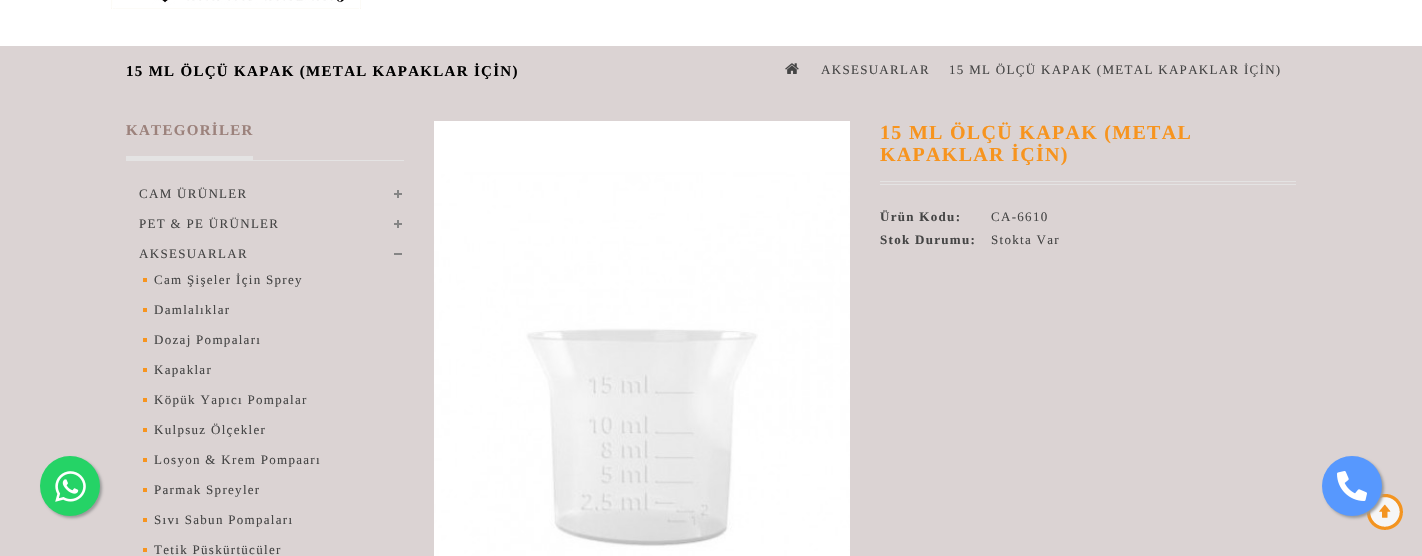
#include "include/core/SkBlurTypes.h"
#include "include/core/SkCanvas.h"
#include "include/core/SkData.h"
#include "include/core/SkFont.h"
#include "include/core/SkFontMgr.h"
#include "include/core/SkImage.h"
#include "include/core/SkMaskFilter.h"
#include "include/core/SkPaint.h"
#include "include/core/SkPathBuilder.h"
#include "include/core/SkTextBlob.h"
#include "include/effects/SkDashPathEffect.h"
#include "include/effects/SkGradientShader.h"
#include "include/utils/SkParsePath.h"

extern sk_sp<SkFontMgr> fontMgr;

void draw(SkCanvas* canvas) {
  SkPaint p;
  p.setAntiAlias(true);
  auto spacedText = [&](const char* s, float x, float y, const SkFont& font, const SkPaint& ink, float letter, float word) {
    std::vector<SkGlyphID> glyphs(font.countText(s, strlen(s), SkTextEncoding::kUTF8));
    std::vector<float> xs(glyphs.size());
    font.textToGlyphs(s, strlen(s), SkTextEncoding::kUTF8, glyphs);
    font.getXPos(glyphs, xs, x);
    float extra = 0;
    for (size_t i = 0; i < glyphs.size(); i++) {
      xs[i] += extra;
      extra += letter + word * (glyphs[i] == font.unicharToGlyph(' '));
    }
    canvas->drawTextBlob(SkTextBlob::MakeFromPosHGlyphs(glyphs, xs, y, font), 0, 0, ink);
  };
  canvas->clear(SkColorSetRGB(219, 211, 211));
  p.setColor(SK_ColorWHITE);
  canvas->drawRect(SkRect::MakeLTRB(0, 0, 1422, 46), p);
  canvas->drawImageRect(SkImages::DeferredFromEncodedData(SkData::MakeFromFileName("images/1.png")), SkRect::MakeLTRB(111, 0, 361, 9), SkSamplingOptions());
  p.setColor(SkColorSetRGB(153, 153, 153));
  p.setMaskFilter(SkMaskFilter::MakeBlur(kNormal_SkBlurStyle, 1.5f));
  canvas->drawRoundRect(SkRect::MakeLTRB(42, 458, 102, 518), 30, 30, p);
  p.setMaskFilter(nullptr);
  p.setColor(SkColorSetRGB(37, 211, 102));
  canvas->drawCircle(70, 486, 30, p);
  canvas->drawImageRect(SkImages::DeferredFromEncodedData(SkData::MakeFromFileName("images/2.png")), SkRect::MakeLTRB(55, 471, 86, 502), SkSamplingOptions());
  canvas->drawImageRect(SkImages::DeferredFromEncodedData(SkData::MakeFromFileName("images/3.png")), SkRect::MakeLTRB(785, 63, 799, 74), SkSamplingOptions());
  p.setColor(SkColorSetRGB(228, 227, 227));
  canvas->drawRect(SkRect::MakeLTRB(126, 160, 404, 161), p);
  canvas->drawRect(SkRect::MakeLTRB(126, 156, 253, 160), p);
  canvas->drawImageRect(SkImages::DeferredFromEncodedData(SkData::MakeFromFileName("images/4.png")), SkRect::MakeLTRB(394, 190, 402, 198), SkSamplingOptions());
  canvas->drawImageRect(SkImages::DeferredFromEncodedData(SkData::MakeFromFileName("images/4.png")), SkRect::MakeLTRB(394, 220, 402, 228), SkSamplingOptions());
  p.setColor(SkColorSetRGB(133, 133, 133));
  canvas->drawRect(SkRect::MakeLTRB(394, 253, 402, 255), p);
  p.setColor(SkColorSetRGB(247, 148, 30));
  canvas->drawRect(SkRect::MakeLTRB(143, 278, 147, 282), p);
  canvas->drawRect(SkRect::MakeLTRB(143, 308, 147, 312), p);
  canvas->drawRect(SkRect::MakeLTRB(143, 338, 147, 342), p);
  canvas->drawRect(SkRect::MakeLTRB(143, 368, 147, 372), p);
  canvas->drawRect(SkRect::MakeLTRB(143, 398, 147, 402), p);
  canvas->drawRect(SkRect::MakeLTRB(143, 428, 147, 432), p);
  canvas->drawRect(SkRect::MakeLTRB(143, 458, 147, 462), p);
  canvas->drawRect(SkRect::MakeLTRB(143, 488, 147, 492), p);
  canvas->drawRect(SkRect::MakeLTRB(143, 518, 147, 522), p);
  canvas->drawRect(SkRect::MakeLTRB(143, 548, 147, 552), p);
  canvas->drawImageRect(SkImages::DeferredFromEncodedData(SkData::MakeFromFileName("images/5.png")), SkRect::MakeLTRB(434, 121, 850, 556), SkSamplingOptions());
  p.setColor(SkColorSetRGB(228, 227, 227));
  canvas->drawRect(SkRect::MakeLTRB(880, 181, 1296, 182), p);
  canvas->drawRect(SkRect::MakeLTRB(880, 184, 1296, 185), p);
  canvas->drawImageRect(SkImages::DeferredFromEncodedData(SkData::MakeFromFileName("images/7.png")), SkRect::MakeLTRB(1367, 494, 1403, 530), SkSamplingOptions());
  p.setColor(SkColorSetRGB(153, 153, 153));
  p.setMaskFilter(SkMaskFilter::MakeBlur(kNormal_SkBlurStyle, 1.5f));
  canvas->drawRoundRect(SkRect::MakeLTRB(1324, 458, 1384, 518), 30, 30, p);
  p.setMaskFilter(nullptr);
  p.setColor(SkColorSetRGB(87, 152, 254));
  canvas->drawCircle(1352, 486, 30, p);
  canvas->drawImageRect(SkImages::DeferredFromEncodedData(SkData::MakeFromFileName("images/6.png")), SkRect::MakeLTRB(1337, 471, 1367, 501), SkSamplingOptions());
  SkFont font1(fontMgr->matchFamilyStyle("Liberation Serif", SkFontStyle::Bold()), 15);
  font1.setSubpixel(true);
  p.setColor(SK_ColorBLACK);
  spacedText("15 ML ÖLÇÜ KAPAK (METAL KAPAKLAR İÇİN)", 126, 76, font1, p, 1.3f, 0);
  SkFont font2(fontMgr->matchFamilyStyle("Liberation Serif", SkFontStyle::Normal()), 13);
  font2.setSubpixel(true);
  p.setColor(SkColorSetRGB(69, 69, 69));
  spacedText("AKSESUARLAR", 821, 74, font2, p, 1.3f, 0);
  spacedText("15 ML ÖLÇÜ KAPAK (METAL KAPAKLAR İÇİN)", 949, 74, font2, p, 1.3f, 0);
  p.setColor(SkColorSetRGB(156, 130, 124));
  spacedText("KATEGORİLER", 126, 135, font1, p, 1.3f, 0);
  p.setColor(SkColorSetRGB(69, 69, 69));
  spacedText("CAM ÜRÜNLER", 139, 198, font2, p, 1.3f, 0);
  spacedText("PET & PE ÜRÜNLER", 139, 228, font2, p, 1.3f, 0);
  spacedText("AKSESUARLAR", 139, 258, font2, p, 1.3f, 0);
  spacedText("Cam Şişeler İçin Sprey", 154, 284, font2, p, 1.3f, 0);
  spacedText("Damlalıklar", 154, 314, font2, p, 1.3f, 0);
  spacedText("Dozaj Pompaları", 154, 344, font2, p, 1.3f, 0);
  spacedText("Kapaklar", 154, 374, font2, p, 1.3f, 0);
  spacedText("Köpük Yapıcı Pompalar", 154, 404, font2, p, 1.3f, 0);
  spacedText("Kulpsuz Ölçekler", 154, 434, font2, p, 1.3f, 0);
  spacedText("Losyon & Krem Pompaarı", 154, 464, font2, p, 1.3f, 0);
  spacedText("Parmak Spreyler", 154, 494, font2, p, 1.3f, 0);
  spacedText("Sıvı Sabun Pompaları", 154, 524, font2, p, 1.3f, 0);
  spacedText("Tetik Püskürtücüler", 154, 554, font2, p, 1.3f, 0);
  SkFont font3(fontMgr->matchFamilyStyle("Liberation Serif", SkFontStyle::Bold()), 20);
  font3.setSubpixel(true);
  p.setColor(SkColorSetRGB(247, 148, 30));
  spacedText("15 ML ÖLÇÜ KAPAK (METAL", 880, 139, font3, p, 1.3f, 0);
  spacedText("KAPAKLAR İÇİN)", 880, 161, font3, p, 1.3f, 0);
  SkFont font4(fontMgr->matchFamilyStyle("Liberation Serif", SkFontStyle::Bold()), 13);
  font4.setSubpixel(true);
  p.setColor(SkColorSetRGB(69, 69, 69));
  spacedText("Ürün Kodu:", 880, 221, font4, p, 1.3f, 0);
  spacedText("CA-6610", 991, 221, font2, p, 1.3f, 0);
  spacedText("Stok Durumu:", 880, 244, font4, p, 1.3f, 0);
  spacedText("Stokta Var", 991, 244, font2, p, 1.3f, 0);
}
